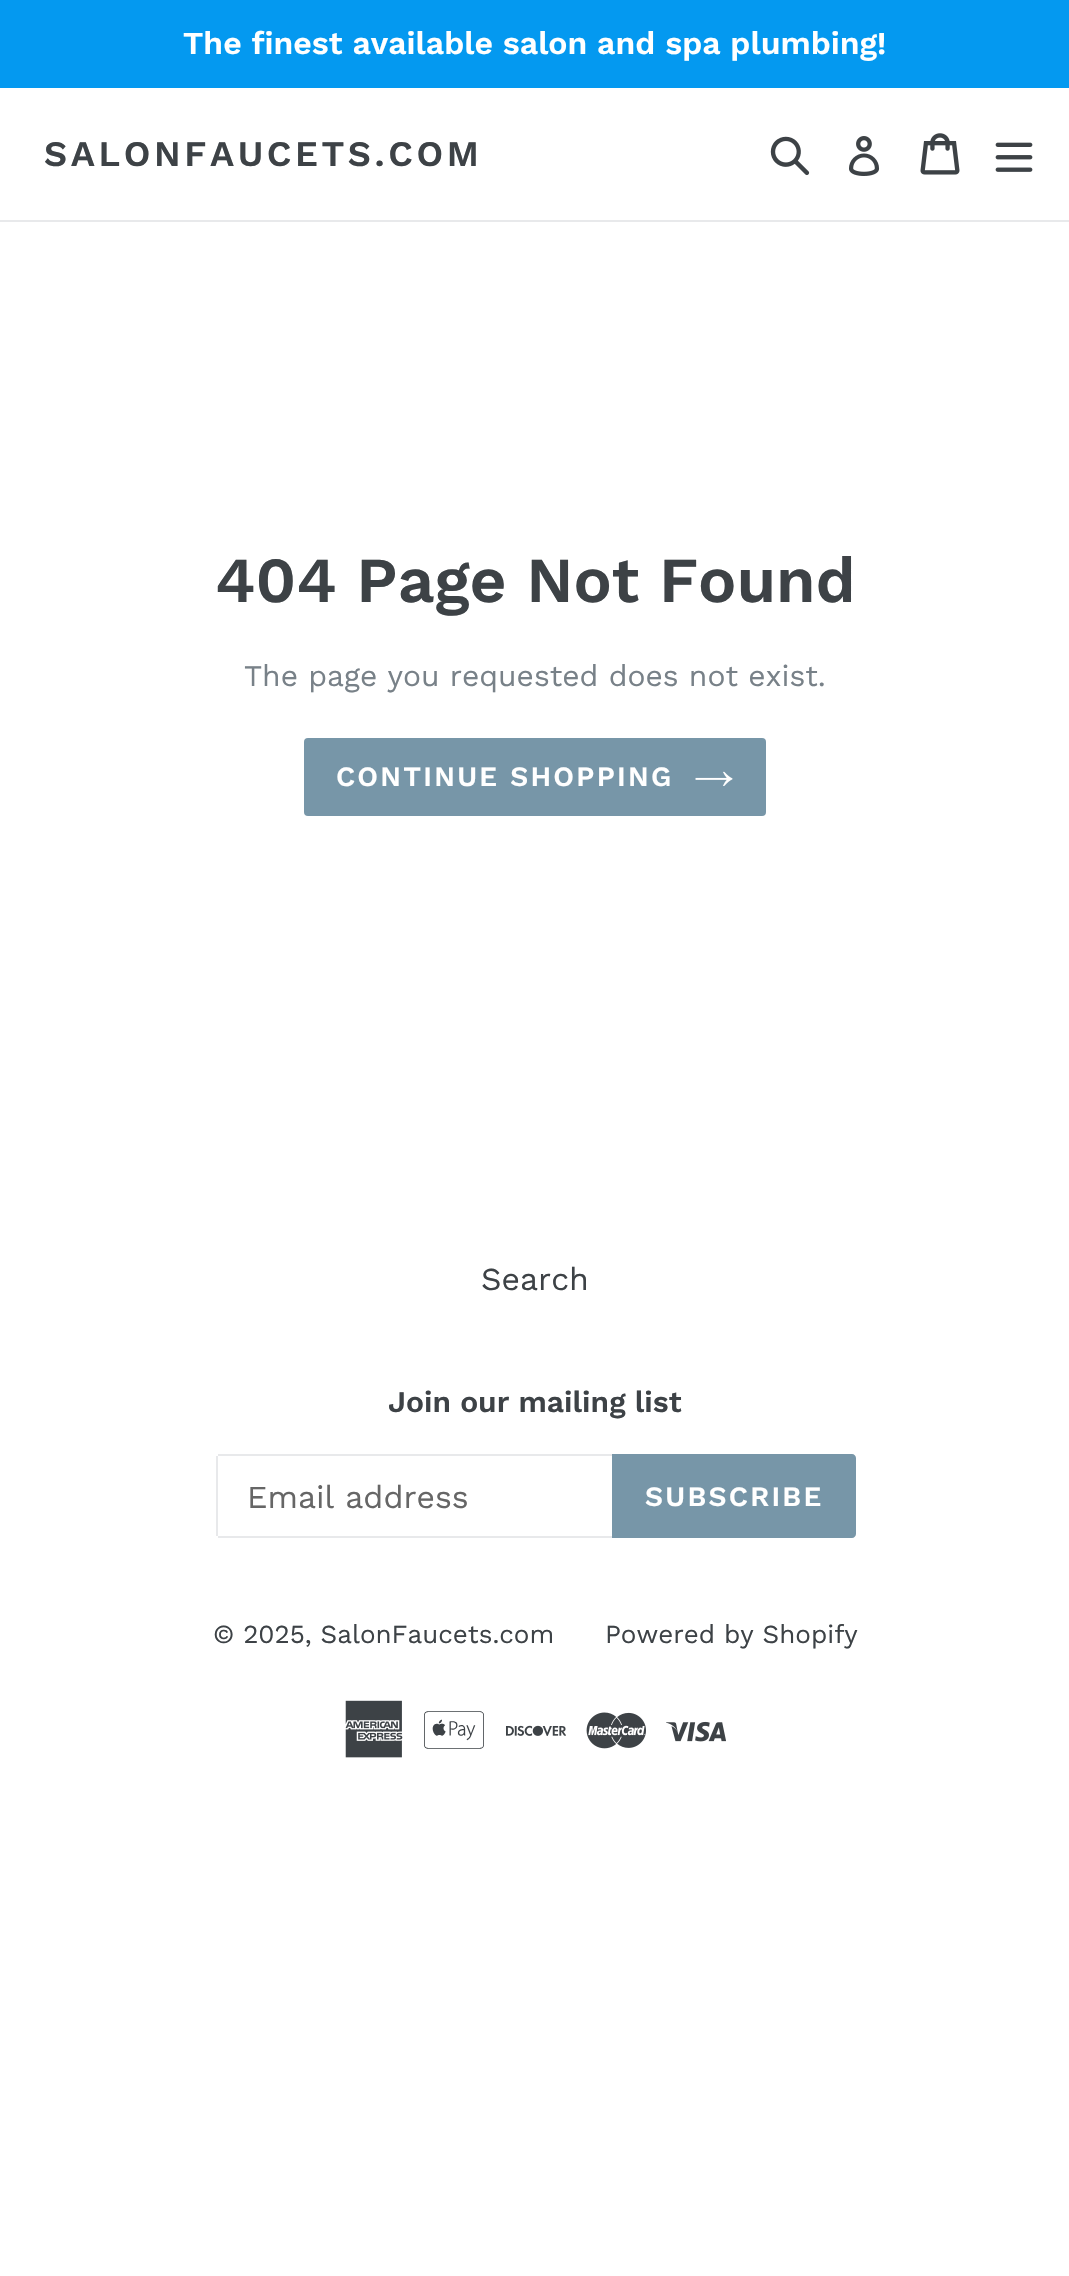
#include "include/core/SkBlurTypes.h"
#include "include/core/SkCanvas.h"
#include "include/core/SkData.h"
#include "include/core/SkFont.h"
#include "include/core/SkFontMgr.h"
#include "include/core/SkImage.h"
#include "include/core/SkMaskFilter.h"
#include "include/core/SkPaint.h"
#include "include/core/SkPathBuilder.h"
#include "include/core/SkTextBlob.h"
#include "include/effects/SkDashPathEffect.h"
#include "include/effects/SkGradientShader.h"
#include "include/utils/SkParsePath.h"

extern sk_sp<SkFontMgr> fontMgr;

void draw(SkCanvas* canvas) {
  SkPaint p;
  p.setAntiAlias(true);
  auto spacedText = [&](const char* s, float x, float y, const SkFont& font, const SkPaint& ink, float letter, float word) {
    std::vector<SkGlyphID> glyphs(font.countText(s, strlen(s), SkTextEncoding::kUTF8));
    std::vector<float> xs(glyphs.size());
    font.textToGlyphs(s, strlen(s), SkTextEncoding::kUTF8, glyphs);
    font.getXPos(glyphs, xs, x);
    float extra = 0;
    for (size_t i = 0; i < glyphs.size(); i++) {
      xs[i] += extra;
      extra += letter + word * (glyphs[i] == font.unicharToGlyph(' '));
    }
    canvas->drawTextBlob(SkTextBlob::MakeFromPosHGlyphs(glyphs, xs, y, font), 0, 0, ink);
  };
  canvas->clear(SK_ColorWHITE);
  p.setColor(SkColorSetRGB(4, 153, 240));
  canvas->drawRect(SkRect::MakeLTRB(0, 0, 1069, 88), p);
  p.setColor(SkColorSetRGB(232, 233, 235));
  canvas->drawRect(SkRect::MakeLTRB(0, 220, 1069, 222), p);
  canvas->drawImageRect(SkImages::DeferredFromEncodedData(SkData::MakeFromFileName("images/1.png")), SkRect::MakeLTRB(770, 136, 810, 176), SkSamplingOptions());
  canvas->drawImageRect(SkImages::DeferredFromEncodedData(SkData::MakeFromFileName("images/2.png")), SkRect::MakeLTRB(849, 136, 880, 176), SkSamplingOptions());
  canvas->drawImageRect(SkImages::DeferredFromEncodedData(SkData::MakeFromFileName("images/3.png")), SkRect::MakeLTRB(920, 133, 960, 175), SkSamplingOptions());
  canvas->drawImageRect(SkImages::DeferredFromEncodedData(SkData::MakeFromFileName("images/4.png")), SkRect::MakeLTRB(995, 142, 1033, 172), SkSamplingOptions());
  p.setColor(SkColorSetRGB(119, 150, 168));
  canvas->drawRoundRect(SkRect::MakeLTRB(304, 738, 766, 816), 4, 4, p);
  canvas->drawImageRect(SkImages::DeferredFromEncodedData(SkData::MakeFromFileName("images/5.png")), SkRect::MakeLTRB(695, 771, 733, 786), SkSamplingOptions());
  p.setColor(SkColorSetRGB(232, 233, 235));
  canvas->drawRect(SkRect::MakeLTRB(218, 1454, 612, 1456), p);
  canvas->drawRect(SkRect::MakeLTRB(218, 1536, 612, 1538), p);
  canvas->drawRect(SkRect::MakeLTRB(216, 1456, 218, 1536), p);
  p.setColor(SkColorSetRGB(119, 150, 168));
  canvas->drawPath(SkPathBuilder().moveTo(612, 1454).lineTo(852, 1454).cubicTo(854, 1454, 856, 1456, 856, 1458).lineTo(856, 1534).cubicTo(856, 1536, 854, 1538, 852, 1538).lineTo(612, 1538).close().detach(), p);
  canvas->drawImageRect(SkImages::DeferredFromEncodedData(SkData::MakeFromFileName("images/6.png")), SkRect::MakeLTRB(345, 1700, 403, 1758), SkSamplingOptions());
  canvas->drawImageRect(SkImages::DeferredFromEncodedData(SkData::MakeFromFileName("images/7.png")), SkRect::MakeLTRB(424, 1711, 484, 1749), SkSamplingOptions());
  canvas->drawImageRect(SkImages::DeferredFromEncodedData(SkData::MakeFromFileName("images/8.png")), SkRect::MakeLTRB(506, 1725, 566, 1736), SkSamplingOptions());
  canvas->drawImageRect(SkImages::DeferredFromEncodedData(SkData::MakeFromFileName("images/9.png")), SkRect::MakeLTRB(586, 1712, 646, 1749), SkSamplingOptions());
  canvas->drawImageRect(SkImages::DeferredFromEncodedData(SkData::MakeFromFileName("images/10.png")), SkRect::MakeLTRB(666, 1721, 726, 1742), SkSamplingOptions());
  SkFont font1(fontMgr->matchFamilyStyle("Work Sans", SkFontStyle(600, SkFontStyle::kNormal_Width, SkFontStyle::kUpright_Slant)), 32);
  font1.setSubpixel(true);
  p.setColor(SK_ColorWHITE);
  canvas->drawString("The finest available salon and spa plumbing!", 183, 54, font1, p);
  SkFont font2(fontMgr->matchFamilyStyle("Work Sans", SkFontStyle(600, SkFontStyle::kNormal_Width, SkFontStyle::kUpright_Slant)), 36);
  font2.setSubpixel(true);
  p.setColor(SkColorSetRGB(61, 66, 70));
  spacedText("SALONFAUCETS.COM", 44, 166, font2, p, 3.6f, 0);
  SkFont font3(fontMgr->matchFamilyStyle("Work Sans", SkFontStyle(600, SkFontStyle::kNormal_Width, SkFontStyle::kUpright_Slant)), 64);
  font3.setSubpixel(true);
  canvas->drawString("404 Page Not Found", 215, 602, font3, p);
  SkFont font4(fontMgr->matchFamilyStyle("Work Sans", SkFontStyle::Normal()), 30);
  font4.setSubpixel(true);
  p.setColor(SkColorSetRGB(120, 129, 136));
  canvas->drawString("The page you requested does not exist.", 244, 686, font4, p);
  SkFont font5(fontMgr->matchFamilyStyle("Work Sans", SkFontStyle(600, SkFontStyle::kNormal_Width, SkFontStyle::kUpright_Slant)), 28);
  font5.setSubpixel(true);
  p.setColor(SK_ColorWHITE);
  spacedText("CONTINUE SHOPPING", 336, 786, font5, p, 2.25f, 0);
  SkFont font6(fontMgr->matchFamilyStyle("Work Sans", SkFontStyle::Normal()), 32);
  font6.setSubpixel(true);
  p.setColor(SkColorSetRGB(61, 66, 70));
  canvas->drawString("Search", 481, 1290, font6, p);
  SkFont font7(fontMgr->matchFamilyStyle("Work Sans", SkFontStyle(600, SkFontStyle::kNormal_Width, SkFontStyle::kUpright_Slant)), 30);
  font7.setSubpixel(true);
  canvas->drawString("Join our mailing list", 388, 1412, font7, p);
  p.setColor(SkColorSetRGB(102, 102, 102));
  canvas->drawString("Email address", 247, 1508, font6, p);
  p.setColor(SK_ColorWHITE);
  spacedText("SUBSCRIBE", 645, 1506, font5, p, 2.25f, 0);
  SkFont font8(fontMgr->matchFamilyStyle("Work Sans", SkFontStyle::Normal()), 26);
  font8.setSubpixel(true);
  p.setColor(SkColorSetRGB(61, 66, 70));
  canvas->drawString("© 2025, SalonFaucets.com", 213, 1643, font8, p);
  canvas->drawString("Powered by Shopify", 605, 1643, font8, p);
}
